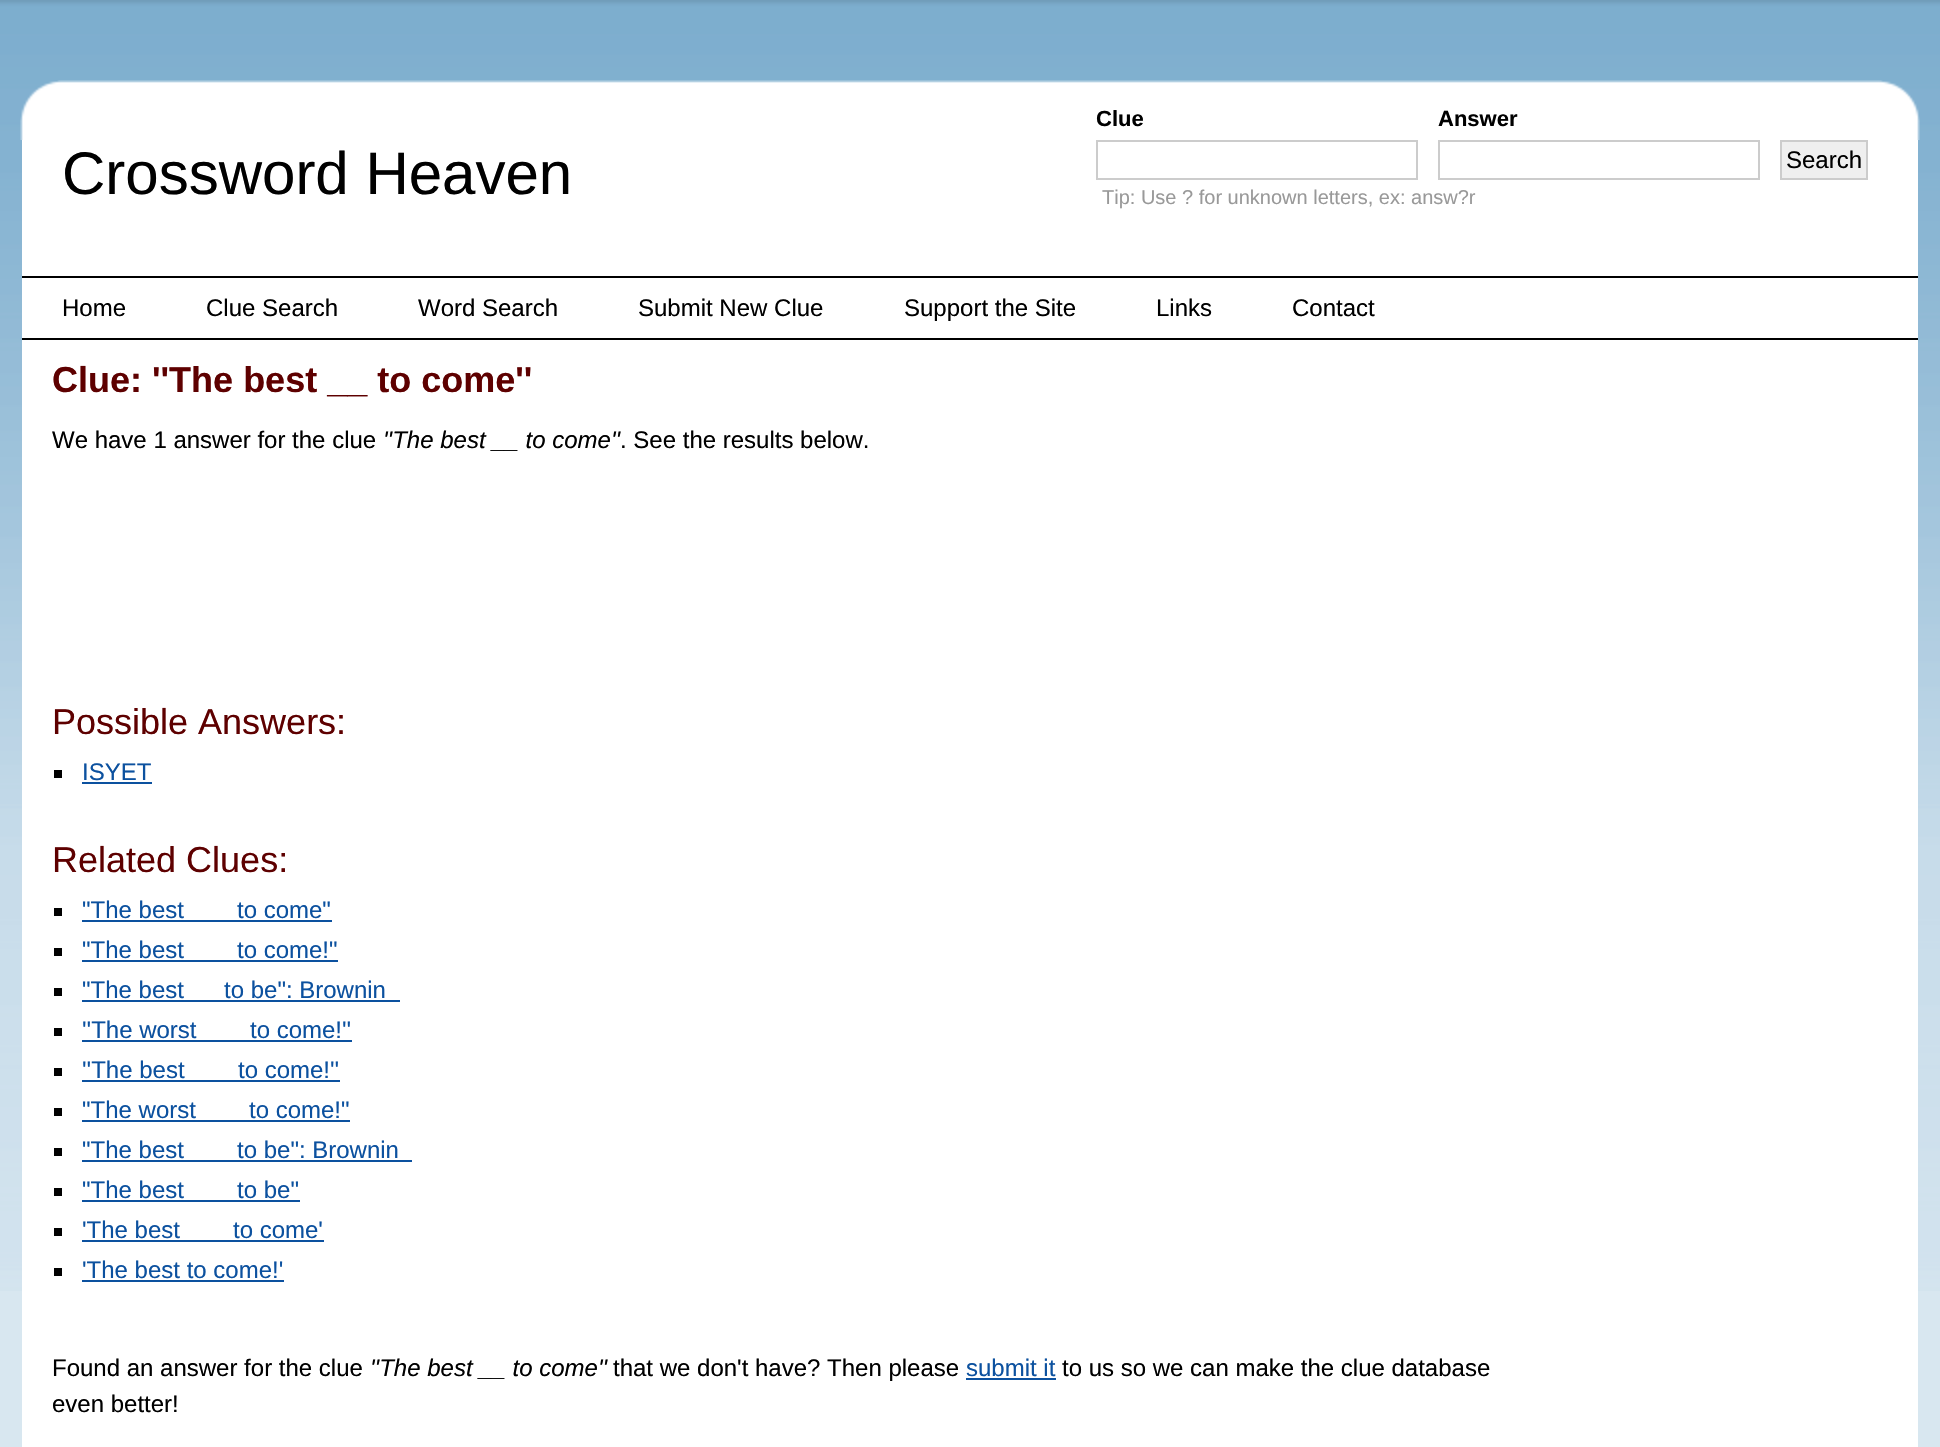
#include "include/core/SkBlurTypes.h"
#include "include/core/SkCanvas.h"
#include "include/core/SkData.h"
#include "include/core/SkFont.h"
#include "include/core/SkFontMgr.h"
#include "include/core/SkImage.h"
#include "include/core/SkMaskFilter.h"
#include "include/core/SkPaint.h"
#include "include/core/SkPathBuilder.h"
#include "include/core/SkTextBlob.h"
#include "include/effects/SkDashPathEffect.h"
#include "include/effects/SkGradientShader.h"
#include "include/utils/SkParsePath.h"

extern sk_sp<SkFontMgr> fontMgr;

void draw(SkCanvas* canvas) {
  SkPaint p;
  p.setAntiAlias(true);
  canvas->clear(SkColorSetRGB(216, 231, 240));
  canvas->drawImageRect(SkImages::DeferredFromEncodedData(SkData::MakeFromFileName("images/1.png")), SkRect::MakeLTRB(0, 0, 1940, 1291), SkSamplingOptions());
  canvas->drawImageRect(SkImages::DeferredFromEncodedData(SkData::MakeFromFileName("images/2.png")), SkRect::MakeLTRB(20, 80, 1920, 140), SkSamplingOptions());
  p.setColor(SK_ColorWHITE);
  canvas->drawRect(SkRect::MakeLTRB(22, 140, 1918, 1447), p);
  p.setStyle(SkPaint::kStroke_Style);
  p.setStrokeWidth(2);
  p.setColor(SkColorSetRGB(204, 204, 204));
  canvas->drawRect(SkRect::MakeLTRB(1097, 141, 1417, 179), p);
  canvas->drawRect(SkRect::MakeLTRB(1439, 141, 1759, 179), p);
  p.setStyle(SkPaint::kFill_Style);
  p.setColor(SkColorSetRGB(239, 239, 239));
  canvas->drawRect(SkRect::MakeLTRB(1781, 141, 1867, 179), p);
  p.setStyle(SkPaint::kStroke_Style);
  p.setColor(SkColorSetRGB(204, 204, 204));
  canvas->drawRect(SkRect::MakeLTRB(1781, 141, 1867, 179), p);
  p.setStyle(SkPaint::kFill_Style);
  p.setColor(SK_ColorBLACK);
  canvas->drawRect(SkRect::MakeLTRB(22, 276, 1918, 278), p);
  canvas->drawRect(SkRect::MakeLTRB(22, 338, 1918, 340), p);
  canvas->drawRect(SkRect::MakeLTRB(54, 770, 62, 778), p);
  p.setColor(SkColorSetRGB(12, 81, 159));
  canvas->drawRect(SkRect::MakeLTRB(82, 782, 152, 784), p);
  p.setColor(SK_ColorBLACK);
  canvas->drawRect(SkRect::MakeLTRB(54, 908, 62, 916), p);
  p.setColor(SkColorSetRGB(12, 81, 159));
  canvas->drawRect(SkRect::MakeLTRB(82, 920, 332, 922), p);
  p.setColor(SK_ColorBLACK);
  canvas->drawRect(SkRect::MakeLTRB(54, 948, 62, 956), p);
  p.setColor(SkColorSetRGB(12, 81, 159));
  canvas->drawRect(SkRect::MakeLTRB(82, 960, 338, 962), p);
  p.setColor(SK_ColorBLACK);
  canvas->drawRect(SkRect::MakeLTRB(54, 988, 62, 996), p);
  p.setColor(SkColorSetRGB(12, 81, 159));
  canvas->drawRect(SkRect::MakeLTRB(82, 1000, 400, 1002), p);
  p.setColor(SK_ColorBLACK);
  canvas->drawRect(SkRect::MakeLTRB(54, 1028, 62, 1036), p);
  p.setColor(SkColorSetRGB(12, 81, 159));
  canvas->drawRect(SkRect::MakeLTRB(82, 1040, 352, 1042), p);
  p.setColor(SK_ColorBLACK);
  canvas->drawRect(SkRect::MakeLTRB(54, 1068, 62, 1076), p);
  p.setColor(SkColorSetRGB(12, 81, 159));
  canvas->drawRect(SkRect::MakeLTRB(82, 1080, 340, 1082), p);
  p.setColor(SK_ColorBLACK);
  canvas->drawRect(SkRect::MakeLTRB(54, 1108, 62, 1116), p);
  p.setColor(SkColorSetRGB(12, 81, 159));
  canvas->drawRect(SkRect::MakeLTRB(82, 1120, 350, 1122), p);
  p.setColor(SK_ColorBLACK);
  canvas->drawRect(SkRect::MakeLTRB(54, 1148, 62, 1156), p);
  p.setColor(SkColorSetRGB(12, 81, 159));
  canvas->drawRect(SkRect::MakeLTRB(82, 1160, 412, 1162), p);
  p.setColor(SK_ColorBLACK);
  canvas->drawRect(SkRect::MakeLTRB(54, 1188, 62, 1196), p);
  p.setColor(SkColorSetRGB(12, 81, 159));
  canvas->drawRect(SkRect::MakeLTRB(82, 1200, 300, 1202), p);
  p.setColor(SK_ColorBLACK);
  canvas->drawRect(SkRect::MakeLTRB(54, 1228, 62, 1236), p);
  p.setColor(SkColorSetRGB(12, 81, 159));
  canvas->drawRect(SkRect::MakeLTRB(82, 1240, 324, 1242), p);
  p.setColor(SK_ColorBLACK);
  canvas->drawRect(SkRect::MakeLTRB(54, 1268, 62, 1276), p);
  p.setColor(SkColorSetRGB(12, 81, 159));
  canvas->drawRect(SkRect::MakeLTRB(82, 1280, 284, 1282), p);
  canvas->drawRect(SkRect::MakeLTRB(966, 1378, 1056, 1380), p);
  SkFont font1(fontMgr->matchFamilyStyle("Liberation Sans", SkFontStyle::Normal()), 60);
  font1.setSubpixel(true);
  p.setColor(SK_ColorBLACK);
  canvas->drawString("Crossword Heaven", 62, 194, font1, p);
  SkFont font2(fontMgr->matchFamilyStyle("Liberation Sans", SkFontStyle::Bold()), 22);
  font2.setSubpixel(true);
  canvas->drawString("Clue", 1096, 126, font2, p);
  canvas->drawString("Answer", 1438, 126, font2, p);
  SkFont font3(fontMgr->matchFamilyStyle("Liberation Sans", SkFontStyle::Normal()), 24);
  font3.setSubpixel(true);
  canvas->drawString("Search", 1786, 168, font3, p);
  SkFont font4(fontMgr->matchFamilyStyle("Liberation Sans", SkFontStyle::Normal()), 20);
  font4.setSubpixel(true);
  p.setColor(SkColorSetRGB(153, 153, 153));
  canvas->drawString("Tip: Use ? for unknown letters, ex: answ?r", 1102, 204, font4, p);
  p.setColor(SK_ColorBLACK);
  canvas->drawString("Home", 62, 316, font3, p);
  canvas->drawString("Clue Search", 206, 316, font3, p);
  canvas->drawString("Word Search", 418, 316, font3, p);
  canvas->drawString("Submit New Clue", 638, 316, font3, p);
  canvas->drawString("Support the Site", 904, 316, font3, p);
  canvas->drawString("Links", 1156, 316, font3, p);
  canvas->drawString("Contact", 1292, 316, font3, p);
  SkFont font5(fontMgr->matchFamilyStyle("Liberation Sans", SkFontStyle::Bold()), 36);
  font5.setSubpixel(true);
  p.setColor(SkColorSetRGB(94, 0, 0));
  canvas->drawString("Clue: ''The best __ to come''", 52, 392, font5, p);
  p.setColor(SK_ColorBLACK);
  canvas->drawString("We have 1 answer for the clue", 52, 448, font3, p);
  SkFont font6(fontMgr->matchFamilyStyle("Liberation Sans", SkFontStyle::Italic()), 24);
  font6.setSubpixel(true);
  canvas->drawString("''The best __ to come''", 383, 448, font6, p);
  canvas->drawString(". See the results below.", 620, 448, font3, p);
  SkFont font7(fontMgr->matchFamilyStyle("Liberation Sans", SkFontStyle::Normal()), 36);
  font7.setSubpixel(true);
  p.setColor(SkColorSetRGB(94, 0, 0));
  canvas->drawString("Possible Answers:", 52, 734, font7, p);
  p.setColor(SkColorSetRGB(12, 81, 159));
  canvas->drawString("ISYET", 82, 780, font3, p);
  p.setColor(SkColorSetRGB(94, 0, 0));
  canvas->drawString("Related Clues:", 52, 872, font7, p);
  p.setColor(SkColorSetRGB(12, 81, 159));
  canvas->drawString("\"The best", 82, 918, font3, p);
  canvas->drawString("to come\"", 237, 918, font3, p);
  canvas->drawString("\"The best", 82, 958, font3, p);
  canvas->drawString("to come!\"", 237, 958, font3, p);
  canvas->drawString("\"The best", 82, 998, font3, p);
  canvas->drawString("to be\": Brownin", 224, 998, font3, p);
  canvas->drawString("''The worst", 82, 1038, font3, p);
  canvas->drawString("to come!''", 250, 1038, font3, p);
  canvas->drawString("''The best", 82, 1078, font3, p);
  canvas->drawString("to come!''", 238, 1078, font3, p);
  canvas->drawString("\"The worst", 82, 1118, font3, p);
  canvas->drawString("to come!\"", 249, 1118, font3, p);
  canvas->drawString("\"The best", 82, 1158, font3, p);
  canvas->drawString("to be\": Brownin", 237, 1158, font3, p);
  canvas->drawString("\"The best", 82, 1198, font3, p);
  canvas->drawString("to be\"", 237, 1198, font3, p);
  canvas->drawString("'The best", 82, 1238, font3, p);
  canvas->drawString("to come'", 233, 1238, font3, p);
  canvas->drawString("'The best to come!'", 82, 1278, font3, p);
  p.setColor(SK_ColorBLACK);
  canvas->drawString("Found an answer for the clue", 52, 1376, font3, p);
  canvas->drawString("''The best __ to come''", 370, 1376, font6, p);
  canvas->drawString("that we don't have? Then please", 613, 1376, font3, p);
  p.setColor(SkColorSetRGB(12, 81, 159));
  canvas->drawString("submit it", 966, 1376, font3, p);
  p.setColor(SK_ColorBLACK);
  canvas->drawString("to us so we can make the clue database", 1062, 1376, font3, p);
  canvas->drawString("even better!", 52, 1412, font3, p);
}
